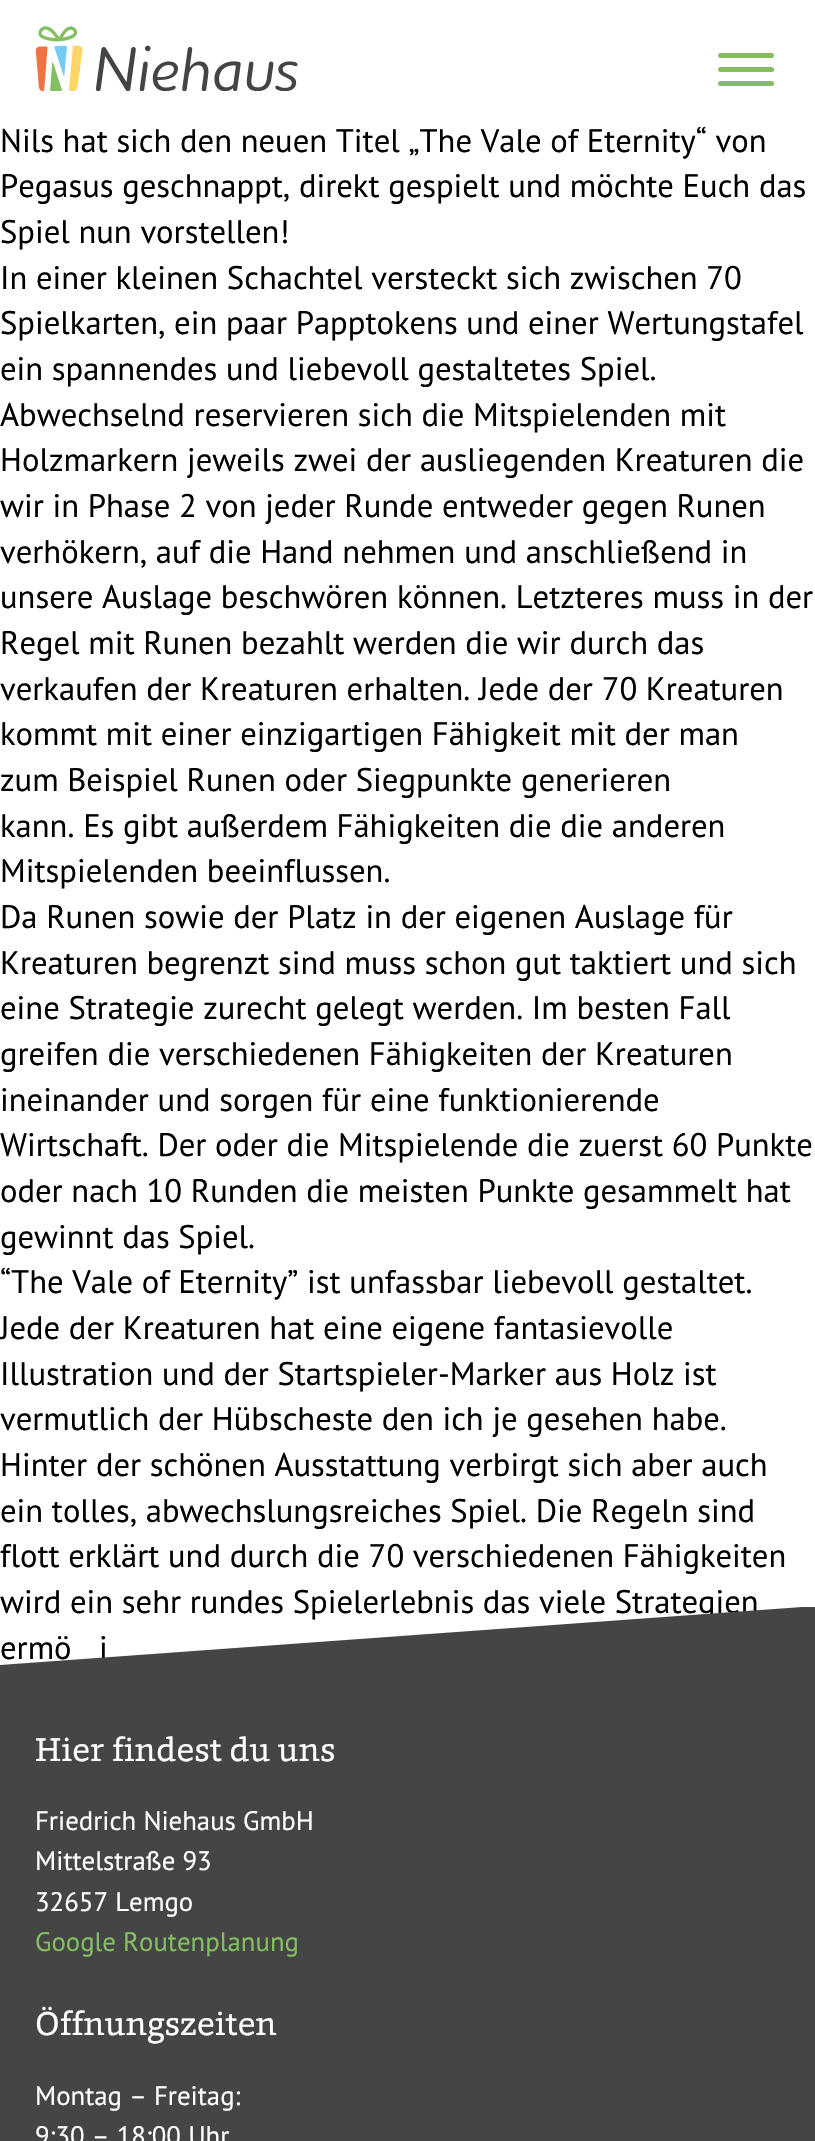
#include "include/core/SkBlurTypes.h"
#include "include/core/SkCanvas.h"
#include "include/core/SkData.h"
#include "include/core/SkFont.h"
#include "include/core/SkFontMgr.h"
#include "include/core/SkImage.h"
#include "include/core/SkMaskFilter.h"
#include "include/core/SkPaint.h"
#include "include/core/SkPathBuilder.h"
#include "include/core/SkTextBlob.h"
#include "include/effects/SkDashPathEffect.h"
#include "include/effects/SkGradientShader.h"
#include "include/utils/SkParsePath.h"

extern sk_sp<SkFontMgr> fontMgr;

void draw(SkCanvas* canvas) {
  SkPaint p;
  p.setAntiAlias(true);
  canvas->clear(SK_ColorWHITE);
  canvas->drawImageRect(SkImages::DeferredFromEncodedData(SkData::MakeFromFileName("images/1.png")), SkRect::MakeLTRB(35, 26, 298, 91), SkSamplingOptions());
  p.setColor(SkColorSetRGB(131, 191, 97));
  canvas->drawRoundRect(SkRect::MakeLTRB(718, 53, 774, 58), 2.5f, 2.5f, p);
  canvas->drawRoundRect(SkRect::MakeLTRB(718, 67, 774, 72), 2.5f, 2.5f, p);
  canvas->drawRoundRect(SkRect::MakeLTRB(718, 81, 774, 86), 2.5f, 2.5f, p);
  p.setColor(SkColorSetRGB(69, 69, 69));
  canvas->drawRect(SkRect::MakeLTRB(0, 1671, 815, 2141), p);
  SkFont font1(fontMgr->matchFamilyStyle("PT Sans", SkFontStyle::Normal()), 32.6f);
  font1.setSubpixel(true);
  p.setColor(SK_ColorBLACK);
  canvas->drawString("Nils hat sich den neuen Titel „The Vale of Eternity“ von", 0, 152, font1, p);
  canvas->drawString("Pegasus geschnappt, direkt gespielt und möchte Euch das", 0, 197, font1, p);
  canvas->drawString("Spiel nun vorstellen!", 0, 243, font1, p);
  canvas->drawString("In einer kleinen Schachtel versteckt sich zwischen 70", 0, 289, font1, p);
  canvas->drawString("Spielkarten, ein paar Papptokens und einer Wertungstafel", 0, 334, font1, p);
  canvas->drawString("ein spannendes und liebevoll gestaltetes Spiel.", 0, 380, font1, p);
  canvas->drawString("Abwechselnd reservieren sich die Mitspielenden mit", 0, 426, font1, p);
  canvas->drawString("Holzmarkern jeweils zwei der ausliegenden Kreaturen die", 0, 471, font1, p);
  canvas->drawString("wir in Phase 2 von jeder Runde entweder gegen Runen", 0, 517, font1, p);
  canvas->drawString("verhökern, auf die Hand nehmen und anschließend in", 0, 563, font1, p);
  canvas->drawString("unsere Auslage beschwören können. Letzteres muss in der", 0, 608, font1, p);
  canvas->drawString("Regel mit Runen bezahlt werden die wir durch das", 0, 654, font1, p);
  canvas->drawString("verkaufen der Kreaturen erhalten. Jede der 70 Kreaturen", 0, 700, font1, p);
  canvas->drawString("kommt mit einer einzigartigen Fähigkeit mit der man", 0, 745, font1, p);
  canvas->drawString("zum Beispiel Runen oder Siegpunkte generieren", 0, 791, font1, p);
  canvas->drawString("kann. Es gibt außerdem Fähigkeiten die die anderen", 0, 837, font1, p);
  canvas->drawString("Mitspielenden beeinflussen.", 0, 882, font1, p);
  canvas->drawString("Da Runen sowie der Platz in der eigenen Auslage für", 0, 928, font1, p);
  canvas->drawString("Kreaturen begrenzt sind muss schon gut taktiert und sich", 0, 974, font1, p);
  canvas->drawString("eine Strategie zurecht gelegt werden. Im besten Fall", 0, 1019, font1, p);
  canvas->drawString("greifen die verschiedenen Fähigkeiten der Kreaturen", 0, 1065, font1, p);
  canvas->drawString("ineinander und sorgen für eine funktionierende", 0, 1111, font1, p);
  canvas->drawString("Wirtschaft. Der oder die Mitspielende die zuerst 60 Punkte", 0, 1156, font1, p);
  canvas->drawString("oder nach 10 Runden die meisten Punkte gesammelt hat", 0, 1202, font1, p);
  canvas->drawString("gewinnt das Spiel.", 0, 1248, font1, p);
  canvas->drawString("“The Vale of Eternity” ist unfassbar liebevoll gestaltet.", 0, 1293, font1, p);
  canvas->drawString("Jede der Kreaturen hat eine eigene fantasievolle", 0, 1339, font1, p);
  canvas->drawString("Illustration und der Startspieler-Marker aus Holz ist", 0, 1385, font1, p);
  canvas->drawString("vermutlich der Hübscheste den ich je gesehen habe.", 0, 1430, font1, p);
  canvas->drawString("Hinter der schönen Ausstattung verbirgt sich aber auch", 0, 1476, font1, p);
  canvas->drawString("ein tolles, abwechslungsreiches Spiel. Die Regeln sind", 0, 1522, font1, p);
  canvas->drawString("flott erklärt und durch die 70 verschiedenen Fähigkeiten", 0, 1567, font1, p);
  canvas->drawString("wird ein sehr rundes Spielerlebnis das viele Strategien", 0, 1613, font1, p);
  canvas->drawString("ermö", 0, 1659, font1, p);
  canvas->drawString("i", 99, 1659, font1, p);
  canvas->save();
  canvas->clipRect(SkRect::MakeLTRB(0, 1607, 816, 1671));
  p.setColor(SkColorSetRGB(69, 69, 69));
  canvas->drawPath(SkPathBuilder().moveTo(0, 1665).lineTo(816, 1606).lineTo(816, 1672).lineTo(0, 1672).close().detach(), p);
  canvas->restore();
  SkFont font2(fontMgr->matchFamilyStyle("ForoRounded", SkFontStyle::Normal()), 33.5f);
  font2.setSubpixel(true);
  p.setColor(SK_ColorWHITE);
  canvas->drawString("Hier findest du uns", 35, 1761, font2, p);
  SkFont font3(fontMgr->matchFamilyStyle("PT Sans", SkFontStyle::Normal()), 26.8f);
  font3.setSubpixel(true);
  canvas->drawString("Friedrich Niehaus GmbH", 35, 1830, font3, p);
  canvas->drawString("Mittelstraße 93", 35, 1870, font3, p);
  canvas->drawString("32657 Lemgo", 35, 1911, font3, p);
  p.setColor(SkColorSetRGB(131, 191, 97));
  canvas->drawString("Google Routenplanung", 35, 1951, font3, p);
  p.setColor(SK_ColorWHITE);
  canvas->drawString("Öffnungszeiten", 35, 2035, font2, p);
  canvas->drawString("Montag – Freitag:", 35, 2105, font3, p);
  canvas->drawString("9:30 – 18:00 Uhr", 35, 2145, font3, p);
}
